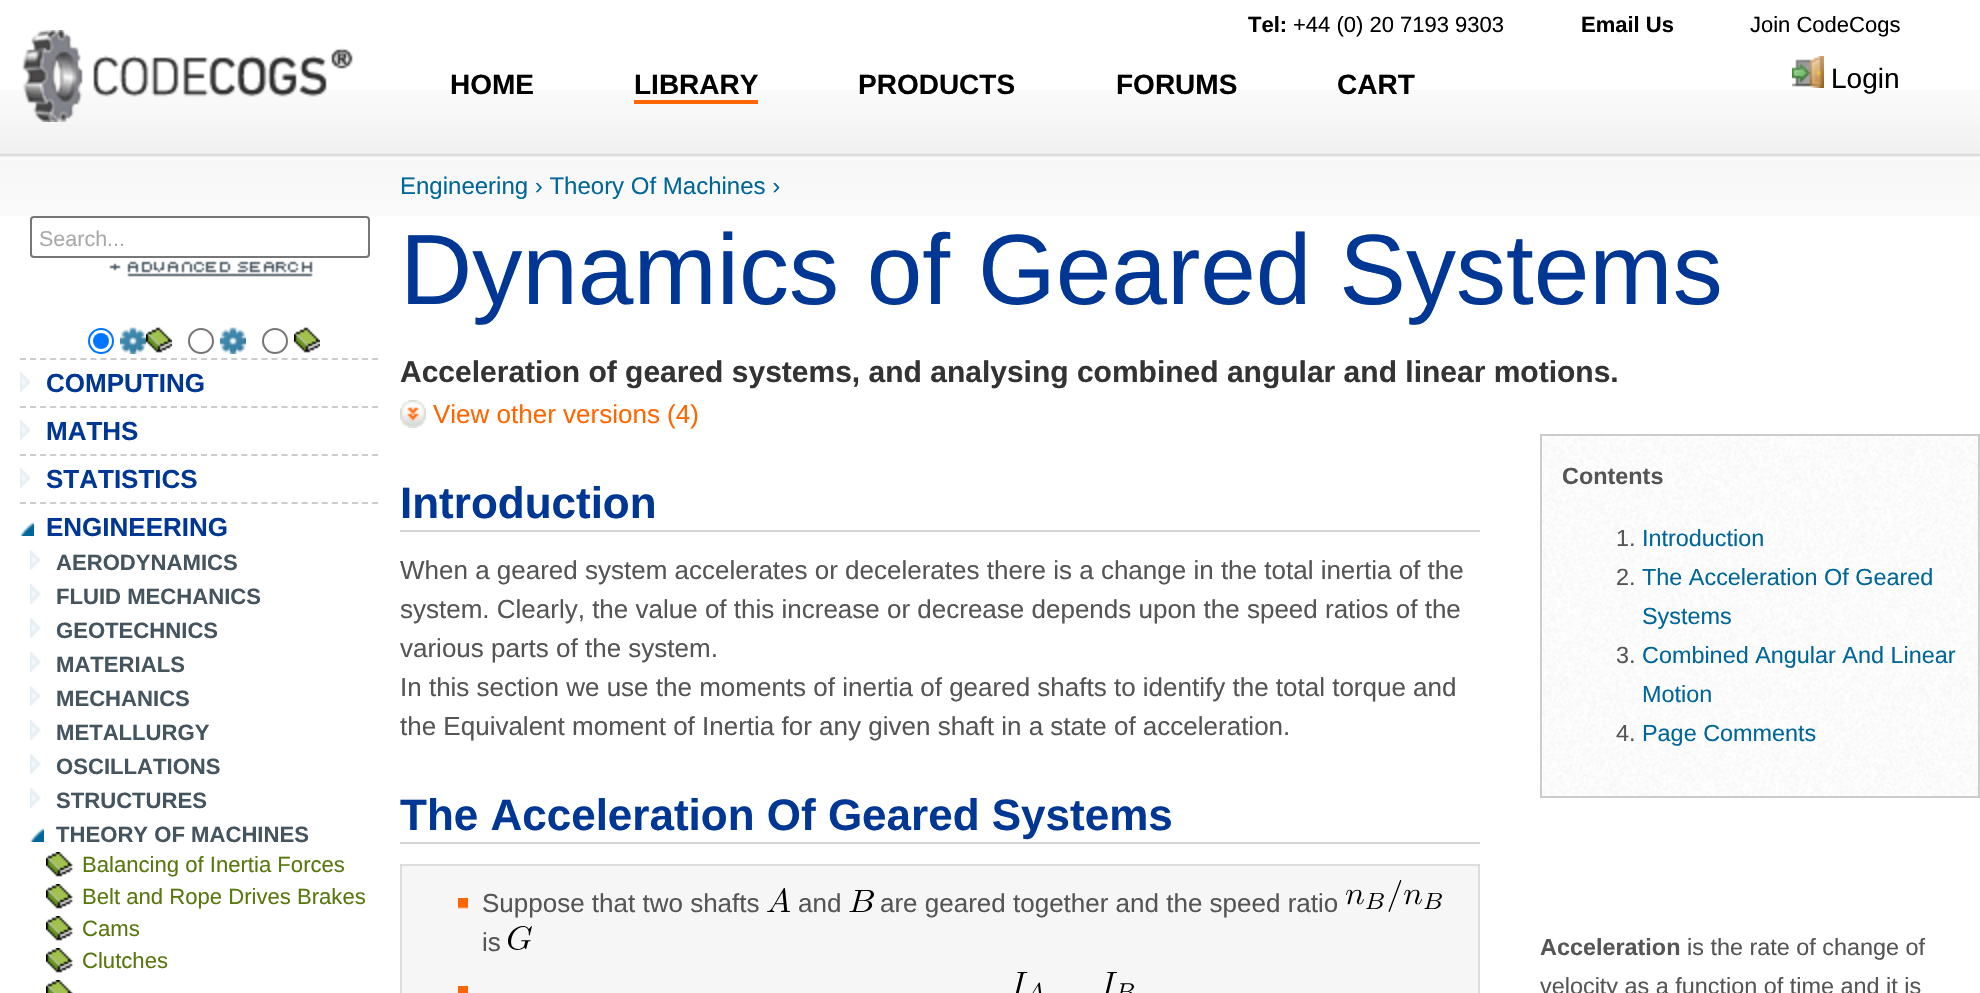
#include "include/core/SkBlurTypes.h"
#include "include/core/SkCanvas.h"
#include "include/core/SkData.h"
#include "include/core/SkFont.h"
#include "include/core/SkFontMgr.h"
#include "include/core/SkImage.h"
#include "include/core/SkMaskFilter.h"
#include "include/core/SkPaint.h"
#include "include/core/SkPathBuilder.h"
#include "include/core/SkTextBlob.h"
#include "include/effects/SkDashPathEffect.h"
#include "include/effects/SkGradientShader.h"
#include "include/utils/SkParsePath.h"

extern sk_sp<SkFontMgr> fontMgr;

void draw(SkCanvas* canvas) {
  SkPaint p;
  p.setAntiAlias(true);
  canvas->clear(SK_ColorWHITE);
  canvas->drawImageRect(SkImages::DeferredFromEncodedData(SkData::MakeFromFileName("images/1.png")), SkRect::MakeLTRB(0, 90, 1980, 216), SkSamplingOptions());
  canvas->drawImageRect(SkImages::DeferredFromEncodedData(SkData::MakeFromFileName("images/2.png")), SkRect::MakeLTRB(22, 30, 353, 122), SkSamplingOptions());
  p.setColor(SkColorSetRGB(255, 102, 0));
  canvas->drawRect(SkRect::MakeLTRB(634, 100, 758, 104), p);
  canvas->drawImageRect(SkImages::DeferredFromEncodedData(SkData::MakeFromFileName("images/3.png")), SkRect::MakeLTRB(1792, 56, 1824, 88), SkSamplingOptions());
  p.setStyle(SkPaint::kStroke_Style);
  p.setStrokeWidth(2);
  p.setColor(SkColorSetRGB(118, 118, 118));
  canvas->drawRoundRect(SkRect::MakeLTRB(31, 217, 369, 257), 3, 3, p);
  canvas->drawImageRect(SkImages::DeferredFromEncodedData(SkData::MakeFromFileName("images/4.png")), SkRect::MakeLTRB(109, 261, 313, 277), SkSamplingOptions());
  p.setColor(SkColorSetRGB(0, 117, 255));
  canvas->drawCircle(101, 341, 12, p);
  p.setStyle(SkPaint::kFill_Style);
  canvas->drawCircle(101, 341, 8, p);
  canvas->drawImageRect(SkImages::DeferredFromEncodedData(SkData::MakeFromFileName("images/5.png")), SkRect::MakeLTRB(120, 327, 146, 354), SkSamplingOptions());
  canvas->drawImageRect(SkImages::DeferredFromEncodedData(SkData::MakeFromFileName("images/6.png")), SkRect::MakeLTRB(146, 327, 172, 353), SkSamplingOptions());
  p.setStyle(SkPaint::kStroke_Style);
  p.setColor(SkColorSetRGB(118, 118, 118));
  canvas->drawCircle(201, 341, 12, p);
  canvas->drawImageRect(SkImages::DeferredFromEncodedData(SkData::MakeFromFileName("images/5.png")), SkRect::MakeLTRB(220, 327, 246, 354), SkSamplingOptions());
  canvas->drawCircle(275, 341, 12, p);
  canvas->drawImageRect(SkImages::DeferredFromEncodedData(SkData::MakeFromFileName("images/6.png")), SkRect::MakeLTRB(294, 327, 320, 353), SkSamplingOptions());
  p.setColor(SkColorSetRGB(204, 204, 204));
  p.setPathEffect(SkDashPathEffect::Make({{6, 4.06f}}, 0));
  canvas->drawPath(SkPathBuilder().moveTo(20, 359).lineTo(378, 359).detach(), p);
  p.setPathEffect(nullptr);
  canvas->drawImageRect(SkImages::DeferredFromEncodedData(SkData::MakeFromFileName("images/7.png")), SkRect::MakeLTRB(20, 372, 31, 392), SkSamplingOptions());
  p.setPathEffect(SkDashPathEffect::Make({{6, 4.06f}}, 0));
  canvas->drawPath(SkPathBuilder().moveTo(20, 407).lineTo(378, 407).detach(), p);
  p.setPathEffect(nullptr);
  canvas->drawImageRect(SkImages::DeferredFromEncodedData(SkData::MakeFromFileName("images/7.png")), SkRect::MakeLTRB(20, 420, 31, 440), SkSamplingOptions());
  p.setPathEffect(SkDashPathEffect::Make({{6, 4.06f}}, 0));
  canvas->drawPath(SkPathBuilder().moveTo(20, 455).lineTo(378, 455).detach(), p);
  p.setPathEffect(nullptr);
  canvas->drawImageRect(SkImages::DeferredFromEncodedData(SkData::MakeFromFileName("images/7.png")), SkRect::MakeLTRB(20, 468, 31, 488), SkSamplingOptions());
  p.setPathEffect(SkDashPathEffect::Make({{6, 4.06f}}, 0));
  canvas->drawPath(SkPathBuilder().moveTo(20, 503).lineTo(378, 503).detach(), p);
  p.setPathEffect(nullptr);
  canvas->drawImageRect(SkImages::DeferredFromEncodedData(SkData::MakeFromFileName("images/8.png")), SkRect::MakeLTRB(20, 521, 34, 536), SkSamplingOptions());
  canvas->drawImageRect(SkImages::DeferredFromEncodedData(SkData::MakeFromFileName("images/7.png")), SkRect::MakeLTRB(30, 550, 41, 570), SkSamplingOptions());
  canvas->drawImageRect(SkImages::DeferredFromEncodedData(SkData::MakeFromFileName("images/7.png")), SkRect::MakeLTRB(30, 584, 41, 604), SkSamplingOptions());
  canvas->drawImageRect(SkImages::DeferredFromEncodedData(SkData::MakeFromFileName("images/7.png")), SkRect::MakeLTRB(30, 618, 41, 638), SkSamplingOptions());
  canvas->drawImageRect(SkImages::DeferredFromEncodedData(SkData::MakeFromFileName("images/7.png")), SkRect::MakeLTRB(30, 652, 41, 672), SkSamplingOptions());
  canvas->drawImageRect(SkImages::DeferredFromEncodedData(SkData::MakeFromFileName("images/7.png")), SkRect::MakeLTRB(30, 686, 41, 706), SkSamplingOptions());
  canvas->drawImageRect(SkImages::DeferredFromEncodedData(SkData::MakeFromFileName("images/7.png")), SkRect::MakeLTRB(30, 720, 41, 740), SkSamplingOptions());
  canvas->drawImageRect(SkImages::DeferredFromEncodedData(SkData::MakeFromFileName("images/7.png")), SkRect::MakeLTRB(30, 754, 41, 774), SkSamplingOptions());
  canvas->drawImageRect(SkImages::DeferredFromEncodedData(SkData::MakeFromFileName("images/7.png")), SkRect::MakeLTRB(30, 788, 41, 808), SkSamplingOptions());
  canvas->drawImageRect(SkImages::DeferredFromEncodedData(SkData::MakeFromFileName("images/8.png")), SkRect::MakeLTRB(30, 827, 44, 842), SkSamplingOptions());
  canvas->drawImageRect(SkImages::DeferredFromEncodedData(SkData::MakeFromFileName("images/9.png")), SkRect::MakeLTRB(46, 852, 73, 877), SkSamplingOptions());
  canvas->drawImageRect(SkImages::DeferredFromEncodedData(SkData::MakeFromFileName("images/9.png")), SkRect::MakeLTRB(46, 884, 73, 909), SkSamplingOptions());
  canvas->drawImageRect(SkImages::DeferredFromEncodedData(SkData::MakeFromFileName("images/9.png")), SkRect::MakeLTRB(46, 916, 73, 941), SkSamplingOptions());
  canvas->drawImageRect(SkImages::DeferredFromEncodedData(SkData::MakeFromFileName("images/9.png")), SkRect::MakeLTRB(46, 948, 73, 973), SkSamplingOptions());
  canvas->drawImageRect(SkImages::DeferredFromEncodedData(SkData::MakeFromFileName("images/10.png")), SkRect::MakeLTRB(46, 980, 73, 993), SkSamplingOptions());
  canvas->drawImageRect(SkImages::DeferredFromEncodedData(SkData::MakeFromFileName("images/11.png")), SkRect::MakeLTRB(400, 400, 426, 428), SkSamplingOptions());
  p.setStyle(SkPaint::kFill_Style);
  p.setColor(SkColorSetRGB(213, 213, 213));
  canvas->drawRect(SkRect::MakeLTRB(400, 530, 1480, 532), p);
  canvas->drawImageRect(SkImages::DeferredFromEncodedData(SkData::MakeFromFileName("images/12.png")), SkRect::MakeLTRB(1542, 436, 1978, 796), SkSamplingOptions());
  p.setStyle(SkPaint::kStroke_Style);
  p.setColor(SkColorSetRGB(204, 204, 204));
  canvas->drawRect(SkRect::MakeLTRB(1541, 435, 1979, 797), p);
  p.setStyle(SkPaint::kFill_Style);
  p.setColor(SkColorSetRGB(213, 213, 213));
  canvas->drawRect(SkRect::MakeLTRB(400, 842, 1480, 844), p);
  p.setColor(SkColorSetRGB(246, 246, 246));
  canvas->drawRect(SkRect::MakeLTRB(401, 865, 1479, 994), p);
  p.setStyle(SkPaint::kStroke_Style);
  p.setColor(SkColorSetRGB(221, 221, 221));
  canvas->drawRect(SkRect::MakeLTRB(401, 865, 1479, 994), p);
  canvas->drawImageRect(SkImages::DeferredFromEncodedData(SkData::MakeFromFileName("images/13.png")), SkRect::MakeLTRB(458, 898, 468, 909), SkSamplingOptions());
  canvas->drawImageRect(SkImages::DeferredFromEncodedData(SkData::MakeFromFileName("images/14.png")), SkRect::MakeLTRB(767, 888, 790, 912), SkSamplingOptions());
  canvas->drawImageRect(SkImages::DeferredFromEncodedData(SkData::MakeFromFileName("images/15.png")), SkRect::MakeLTRB(849, 890, 874, 912), SkSamplingOptions());
  canvas->drawImageRect(SkImages::DeferredFromEncodedData(SkData::MakeFromFileName("images/16.png")), SkRect::MakeLTRB(1346, 880, 1442, 912), SkSamplingOptions());
  canvas->drawImageRect(SkImages::DeferredFromEncodedData(SkData::MakeFromFileName("images/17.png")), SkRect::MakeLTRB(508, 926, 532, 950), SkSamplingOptions());
  p.setStyle(SkPaint::kFill_Style);
  p.setColor(SkColorSetRGB(255, 102, 0));
  canvas->drawRect(SkRect::MakeLTRB(458, 986, 468, 993), p);
  canvas->drawImageRect(SkImages::DeferredFromEncodedData(SkData::MakeFromFileName("images/18.png")), SkRect::MakeLTRB(1015, 972, 1042, 993), SkSamplingOptions());
  canvas->drawImageRect(SkImages::DeferredFromEncodedData(SkData::MakeFromFileName("images/19.png")), SkRect::MakeLTRB(1105, 972, 1134, 993), SkSamplingOptions());
  SkFont font1(fontMgr->matchFamilyStyle("Liberation Sans", SkFontStyle::Bold()), 28);
  font1.setSubpixel(true);
  p.setColor(SK_ColorBLACK);
  canvas->drawString("HOME", 450, 94, font1, p);
  canvas->drawString("LIBRARY", 634, 94, font1, p);
  canvas->drawString("PRODUCTS", 858, 94, font1, p);
  canvas->drawString("FORUMS", 1116, 94, font1, p);
  canvas->drawString("CART", 1337, 94, font1, p);
  SkFont font2(fontMgr->matchFamilyStyle("Liberation Sans", SkFontStyle::Bold()), 22);
  font2.setSubpixel(true);
  canvas->drawString("Tel:", 1248, 32, font2, p);
  SkFont font3(fontMgr->matchFamilyStyle("Liberation Sans", SkFontStyle::Normal()), 22);
  font3.setSubpixel(true);
  canvas->drawString("+44 (0) 20 7193 9303", 1293, 32, font3, p);
  canvas->drawString("Email Us", 1581, 32, font2, p);
  canvas->drawString("Join CodeCogs", 1750, 32, font3, p);
  SkFont font4(fontMgr->matchFamilyStyle("Liberation Sans", SkFontStyle::Normal()), 28);
  font4.setSubpixel(true);
  canvas->drawString("Login", 1831, 88, font4, p);
  SkFont font5(fontMgr->matchFamilyStyle("Liberation Sans", SkFontStyle::Normal()), 21.5f);
  font5.setSubpixel(true);
  p.setColor(SkColorSetRGB(170, 170, 170));
  canvas->drawString("Search...", 39, 246, font5, p);
  SkFont font6(fontMgr->matchFamilyStyle("Liberation Sans", SkFontStyle::Bold()), 26);
  font6.setSubpixel(true);
  p.setColor(SkColorSetRGB(0, 55, 148));
  canvas->drawString("COMPUTING", 46, 392, font6, p);
  canvas->drawString("MATHS", 46, 440, font6, p);
  canvas->drawString("STATISTICS", 46, 488, font6, p);
  canvas->drawString("ENGINEERING", 46, 536, font6, p);
  SkFont font7(fontMgr->matchFamilyStyle("Liberation Sans", SkFontStyle::Bold()), 22.1f);
  font7.setSubpixel(true);
  p.setColor(SkColorSetRGB(69, 85, 96));
  canvas->drawString("AERODYNAMICS", 56, 570, font7, p);
  canvas->drawString("FLUID MECHANICS", 56, 604, font7, p);
  canvas->drawString("GEOTECHNICS", 56, 638, font7, p);
  canvas->drawString("MATERIALS", 56, 672, font7, p);
  canvas->drawString("MECHANICS", 56, 706, font7, p);
  canvas->drawString("METALLURGY", 56, 740, font7, p);
  canvas->drawString("OSCILLATIONS", 56, 774, font7, p);
  canvas->drawString("STRUCTURES", 56, 808, font7, p);
  canvas->drawString("THEORY OF MACHINES", 56, 842, font7, p);
  SkFont font8(fontMgr->matchFamilyStyle("Liberation Sans", SkFontStyle::Normal()), 22.1f);
  font8.setSubpixel(true);
  p.setColor(SkColorSetRGB(89, 119, 14));
  canvas->drawString("Balancing of Inertia Forces", 82, 872, font8, p);
  canvas->drawString("Belt and Rope Drives Brakes", 82, 904, font8, p);
  canvas->drawString("Cams", 82, 936, font8, p);
  canvas->drawString("Clutches", 82, 968, font8, p);
  SkFont font9(fontMgr->matchFamilyStyle("Liberation Sans", SkFontStyle::Normal()), 24);
  font9.setSubpixel(true);
  p.setColor(SkColorSetRGB(0, 102, 153));
  canvas->drawString("Engineering › Theory Of Machines ›", 400, 194, font9, p);
  SkFont font10(fontMgr->matchFamilyStyle("Liberation Sans", SkFontStyle::Normal()), 100);
  font10.setSubpixel(true);
  p.setColor(SkColorSetRGB(0, 55, 148));
  canvas->drawString("Dynamics of Geared Systems", 400, 304, font10, p);
  SkFont font11(fontMgr->matchFamilyStyle("Liberation Sans", SkFontStyle::Bold()), 30);
  font11.setSubpixel(true);
  p.setColor(SkColorSetRGB(51, 51, 51));
  canvas->drawString("Acceleration of geared systems, and analysing combined angular and linear motions.", 400, 382, font11, p);
  SkFont font12(fontMgr->matchFamilyStyle("Liberation Sans", SkFontStyle::Normal()), 26);
  font12.setSubpixel(true);
  p.setColor(SkColorSetRGB(255, 102, 0));
  canvas->drawString("View other versions (4)", 433, 423, font12, p);
  SkFont font13(fontMgr->matchFamilyStyle("Liberation Sans", SkFontStyle::Bold()), 44);
  font13.setSubpixel(true);
  p.setColor(SkColorSetRGB(0, 55, 148));
  canvas->drawString("Introduction", 400, 518, font13, p);
  p.setColor(SkColorSetRGB(85, 85, 85));
  canvas->drawString("When a geared system accelerates or decelerates there is a change in the total inertia of the", 400, 579, font12, p);
  canvas->drawString("system. Clearly, the value of this increase or decrease depends upon the speed ratios of the", 400, 618, font12, p);
  canvas->drawString("various parts of the system.", 400, 657, font12, p);
  canvas->drawString("In this section we use the moments of inertia of geared shafts to identify the total torque and", 400, 696, font12, p);
  canvas->drawString("the Equivalent moment of Inertia for any given shaft in a state of acceleration.", 400, 735, font12, p);
  SkFont font14(fontMgr->matchFamilyStyle("Liberation Sans", SkFontStyle::Bold()), 23.4f);
  font14.setSubpixel(true);
  canvas->drawString("Contents", 1562, 484, font14, p);
  SkFont font15(fontMgr->matchFamilyStyle("Liberation Sans", SkFontStyle::Normal()), 23.4f);
  font15.setSubpixel(true);
  canvas->drawString("1.", 1616, 546, font15, p);
  p.setColor(SkColorSetRGB(0, 102, 153));
  canvas->drawString("Introduction", 1642, 546, font15, p);
  p.setColor(SkColorSetRGB(85, 85, 85));
  canvas->drawString("2.", 1616, 585, font15, p);
  p.setColor(SkColorSetRGB(0, 102, 153));
  canvas->drawString("The Acceleration Of Geared", 1642, 585, font15, p);
  canvas->drawString("Systems", 1642, 624, font15, p);
  p.setColor(SkColorSetRGB(85, 85, 85));
  canvas->drawString("3.", 1616, 663, font15, p);
  p.setColor(SkColorSetRGB(0, 102, 153));
  canvas->drawString("Combined Angular And Linear", 1642, 663, font15, p);
  canvas->drawString("Motion", 1642, 702, font15, p);
  p.setColor(SkColorSetRGB(85, 85, 85));
  canvas->drawString("4.", 1616, 741, font15, p);
  p.setColor(SkColorSetRGB(0, 102, 153));
  canvas->drawString("Page Comments", 1642, 741, font15, p);
  p.setColor(SkColorSetRGB(0, 55, 148));
  canvas->drawString("The Acceleration Of Geared Systems", 400, 830, font13, p);
  p.setColor(SkColorSetRGB(85, 85, 85));
  canvas->drawString("Suppose that two shafts", 482, 912, font12, p);
  canvas->drawString("and", 798, 912, font12, p);
  canvas->drawString("are geared together and the speed ratio", 880, 912, font12, p);
  canvas->drawString("is", 482, 951, font12, p);
  canvas->drawString("Acceleration", 1540, 955, font14, p);
  canvas->drawString("is the rate of change of", 1687, 955, font15, p);
  canvas->drawString("velocity as a function of time and it is", 1540, 994, font15, p);
}
